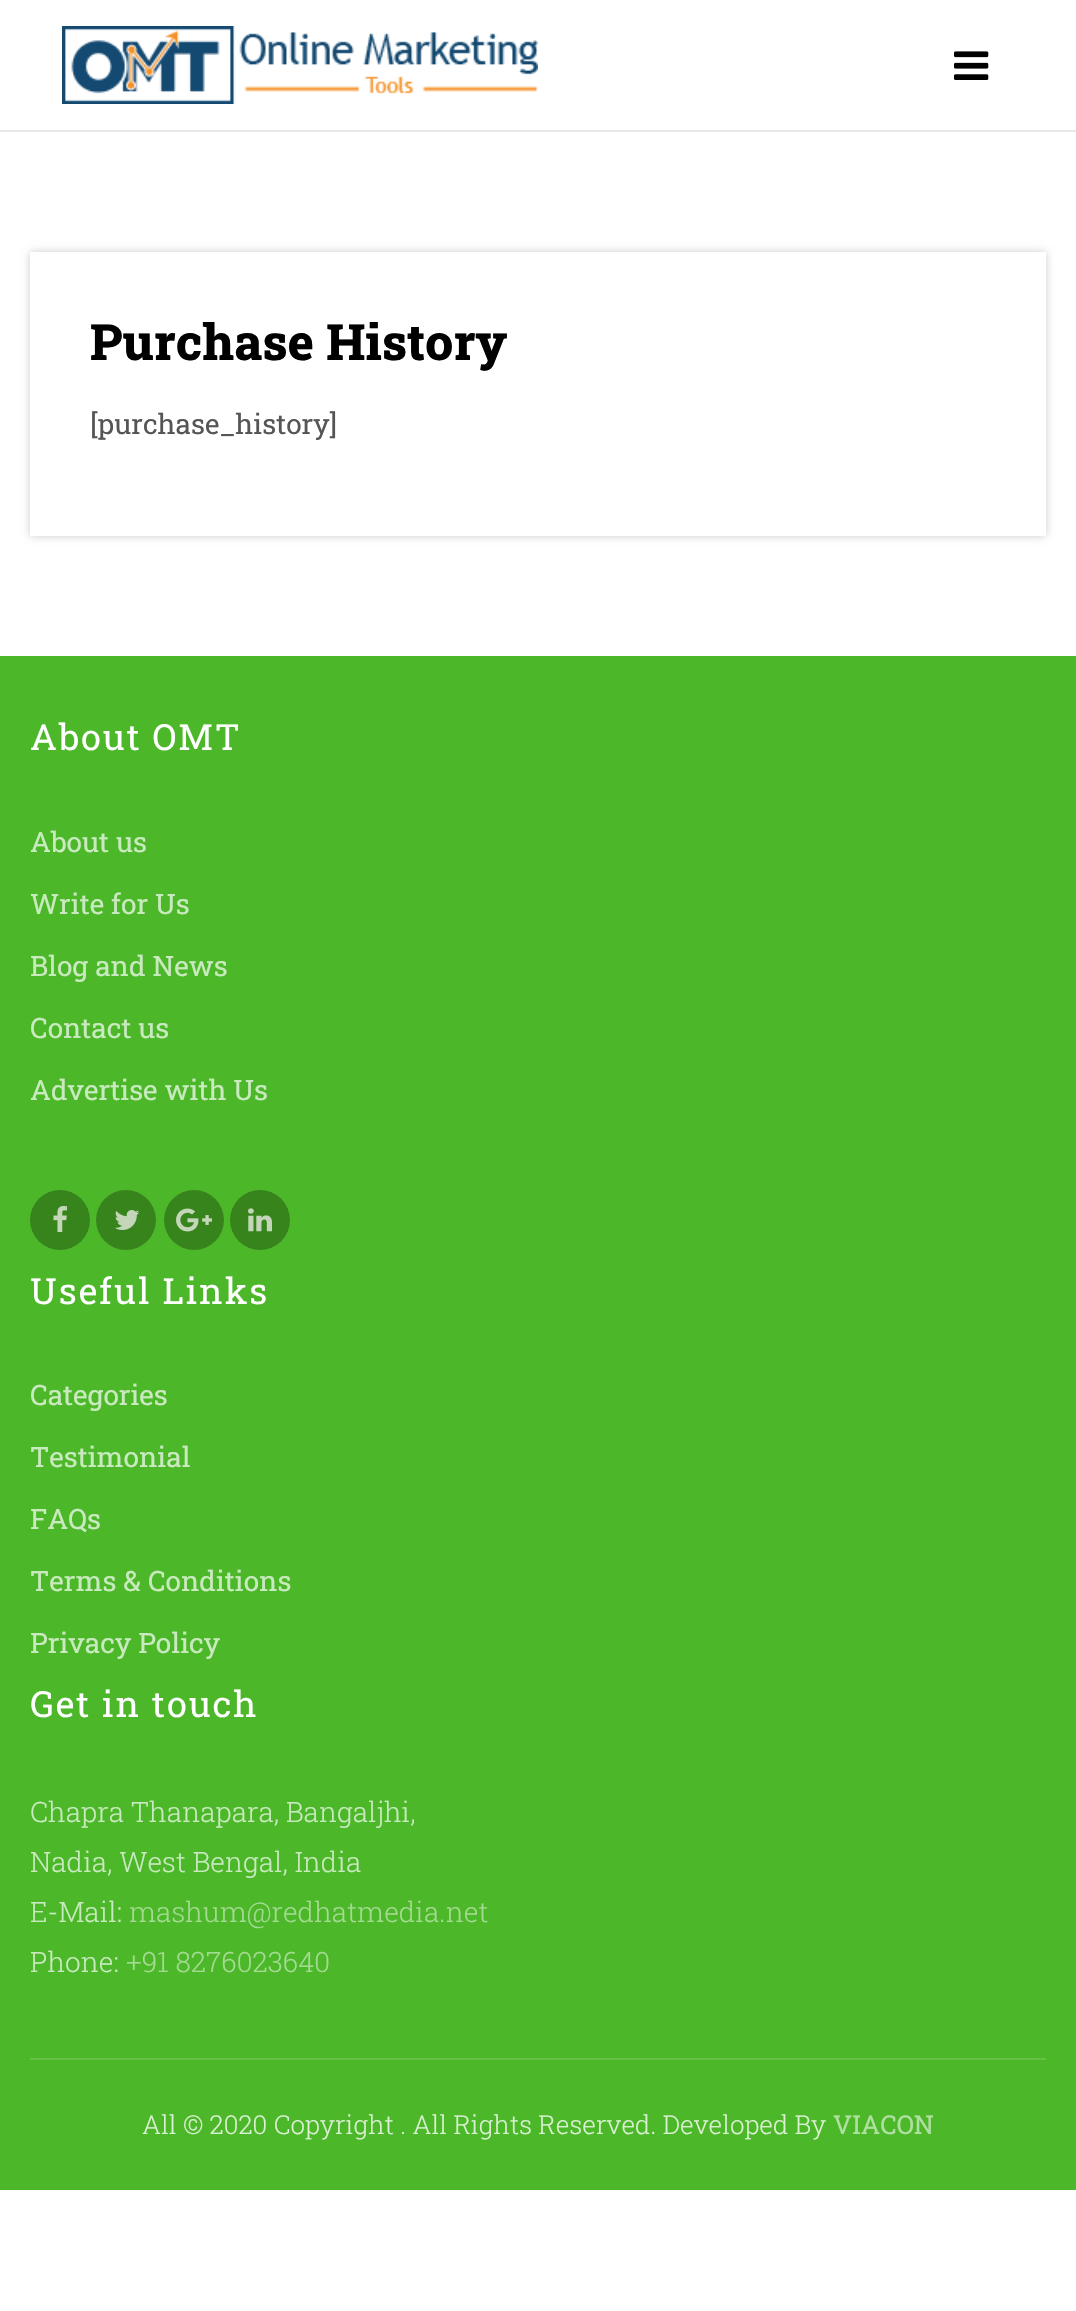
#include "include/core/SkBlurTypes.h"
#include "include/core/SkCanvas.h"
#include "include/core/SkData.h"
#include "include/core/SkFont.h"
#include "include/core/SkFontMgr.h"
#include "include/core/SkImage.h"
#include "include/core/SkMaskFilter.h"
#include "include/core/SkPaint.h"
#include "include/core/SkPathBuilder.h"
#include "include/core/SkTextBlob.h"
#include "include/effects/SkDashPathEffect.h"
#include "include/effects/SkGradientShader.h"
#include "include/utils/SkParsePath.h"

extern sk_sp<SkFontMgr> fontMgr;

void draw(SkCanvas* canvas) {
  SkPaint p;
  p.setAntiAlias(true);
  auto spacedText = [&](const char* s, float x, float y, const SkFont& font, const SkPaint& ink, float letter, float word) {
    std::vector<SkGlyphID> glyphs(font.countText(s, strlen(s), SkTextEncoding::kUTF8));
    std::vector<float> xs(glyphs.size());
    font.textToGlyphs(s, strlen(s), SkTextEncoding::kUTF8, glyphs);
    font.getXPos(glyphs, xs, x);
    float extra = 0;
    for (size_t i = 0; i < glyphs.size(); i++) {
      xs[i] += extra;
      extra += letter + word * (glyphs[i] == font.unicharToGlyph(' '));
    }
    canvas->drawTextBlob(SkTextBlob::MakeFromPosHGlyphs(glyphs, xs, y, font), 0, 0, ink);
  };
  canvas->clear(SK_ColorWHITE);
  p.setColor(SkColorSetRGB(232, 232, 232));
  canvas->drawRect(SkRect::MakeLTRB(0, 130, 1076, 132), p);
  canvas->drawImageRect(SkImages::DeferredFromEncodedData(SkData::MakeFromFileName("images/1.png")), SkRect::MakeLTRB(62, 26, 538, 104), SkSamplingOptions());
  canvas->drawImageRect(SkImages::DeferredFromEncodedData(SkData::MakeFromFileName("images/2.png")), SkRect::MakeLTRB(954, 51, 989, 80), SkSamplingOptions());
  canvas->save();
  canvas->clipPath(SkPathBuilder(SkPathFillType::kEvenOdd).moveTo(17, 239).lineTo(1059, 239).lineTo(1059, 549).lineTo(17, 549).close().moveTo(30, 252).lineTo(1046, 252).lineTo(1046, 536).lineTo(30, 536).close().detach(), true);
  p.setColor(SkColorSetARGB(51, 0, 0, 0));
  p.setMaskFilter(SkMaskFilter::MakeBlur(kNormal_SkBlurStyle, 4));
  canvas->drawRect(SkRect::MakeLTRB(30, 252, 1046, 536), p);
  p.setMaskFilter(nullptr);
  canvas->restore();
  p.setColor(SkColorSetRGB(76, 184, 41));
  canvas->drawRect(SkRect::MakeLTRB(0, 656, 1076, 2190), p);
  p.setColor(SkColorSetRGB(55, 132, 29));
  canvas->drawCircle(60, 1220, 30, p);
  canvas->drawImageRect(SkImages::DeferredFromEncodedData(SkData::MakeFromFileName("images/3.png")), SkRect::MakeLTRB(53, 1206, 67, 1232), SkSamplingOptions());
  canvas->drawCircle(126, 1220, 30, p);
  canvas->drawImageRect(SkImages::DeferredFromEncodedData(SkData::MakeFromFileName("images/4.png")), SkRect::MakeLTRB(115, 1210, 140, 1230), SkSamplingOptions());
  canvas->drawCircle(194, 1220, 30, p);
  canvas->drawImageRect(SkImages::DeferredFromEncodedData(SkData::MakeFromFileName("images/5.png")), SkRect::MakeLTRB(176, 1208, 212, 1232), SkSamplingOptions());
  canvas->drawCircle(260, 1220, 30, p);
  canvas->drawImageRect(SkImages::DeferredFromEncodedData(SkData::MakeFromFileName("images/6.png")), SkRect::MakeLTRB(248, 1208, 272, 1232), SkSamplingOptions());
  p.setColor(SkColorSetRGB(101, 194, 71));
  canvas->drawRect(SkRect::MakeLTRB(30, 2058, 1046, 2060), p);
  SkFont font1(fontMgr->matchFamilyStyle("Roboto Slab", SkFontStyle(800, SkFontStyle::kNormal_Width, SkFontStyle::kUpright_Slant)), 50);
  font1.setSubpixel(true);
  p.setColor(SK_ColorBLACK);
  canvas->drawString("Purchase History", 90, 360, font1, p);
  SkFont font2(fontMgr->matchFamilyStyle("Roboto Slab", SkFontStyle::Normal()), 28);
  font2.setSubpixel(true);
  p.setColor(SkColorSetRGB(85, 85, 85));
  canvas->drawString("[purchase_history]", 90, 434, font2, p);
  SkFont font3(fontMgr->matchFamilyStyle("Roboto Slab", SkFontStyle::Normal()), 36);
  font3.setSubpixel(true);
  p.setColor(SK_ColorWHITE);
  spacedText("About OMT", 30, 750, font3, p, 2, 0);
  p.setColor(SkColorSetRGB(201, 234, 191));
  canvas->drawString("About us", 30, 852, font2, p);
  canvas->drawString("Write for Us", 30, 914, font2, p);
  canvas->drawString("Blog and News", 30, 976, font2, p);
  canvas->drawString("Contact us", 30, 1038, font2, p);
  canvas->drawString("Advertise with Us", 30, 1100, font2, p);
  p.setColor(SK_ColorWHITE);
  spacedText("Useful Links", 30, 1304, font3, p, 2, 0);
  p.setColor(SkColorSetRGB(201, 234, 191));
  canvas->drawString("Categories", 30, 1405, font2, p);
  canvas->drawString("Testimonial", 30, 1467, font2, p);
  canvas->drawString("FAQs", 30, 1529, font2, p);
  canvas->drawString("Terms & Conditions", 30, 1591, font2, p);
  canvas->drawString("Privacy Policy", 30, 1653, font2, p);
  p.setColor(SK_ColorWHITE);
  spacedText("Get in touch", 30, 1717, font3, p, 2, 0);
  SkFont font4(fontMgr->matchFamilyStyle("Roboto Slab", SkFontStyle(300, SkFontStyle::kNormal_Width, SkFontStyle::kUpright_Slant)), 28);
  font4.setSubpixel(true);
  p.setColor(SkColorSetRGB(201, 234, 191));
  canvas->drawString("Chapra Thanapara, Bangaljhi,", 30, 1822, font4, p);
  canvas->drawString("Nadia, West Bengal, India", 30, 1872, font4, p);
  canvas->drawString("E-Mail:", 30, 1922, font4, p);
  p.setColor(SkColorSetRGB(164, 219, 146));
  canvas->drawString("mashum@redhatmedia.net", 129, 1922, font4, p);
  p.setColor(SkColorSetRGB(201, 234, 191));
  canvas->drawString("Phone:", 30, 1972, font4, p);
  p.setColor(SkColorSetRGB(164, 219, 146));
  canvas->drawString("+91 8276023640", 126, 1972, font4, p);
  SkFont font5(fontMgr->matchFamilyStyle("Roboto Slab", SkFontStyle(300, SkFontStyle::kNormal_Width, SkFontStyle::kUpright_Slant)), 26);
  font5.setSubpixel(true);
  p.setColor(SkColorSetRGB(219, 241, 212));
  canvas->drawString("All © 2020 Copyright . All Rights Reserved. Developed By", 142, 2134, font5, p);
  SkFont font6(fontMgr->matchFamilyStyle("Roboto Slab", SkFontStyle::Normal()), 26);
  font6.setSubpixel(true);
  p.setColor(SkColorSetRGB(176, 224, 161));
  canvas->drawString("VIACON", 833, 2134, font6, p);
}
